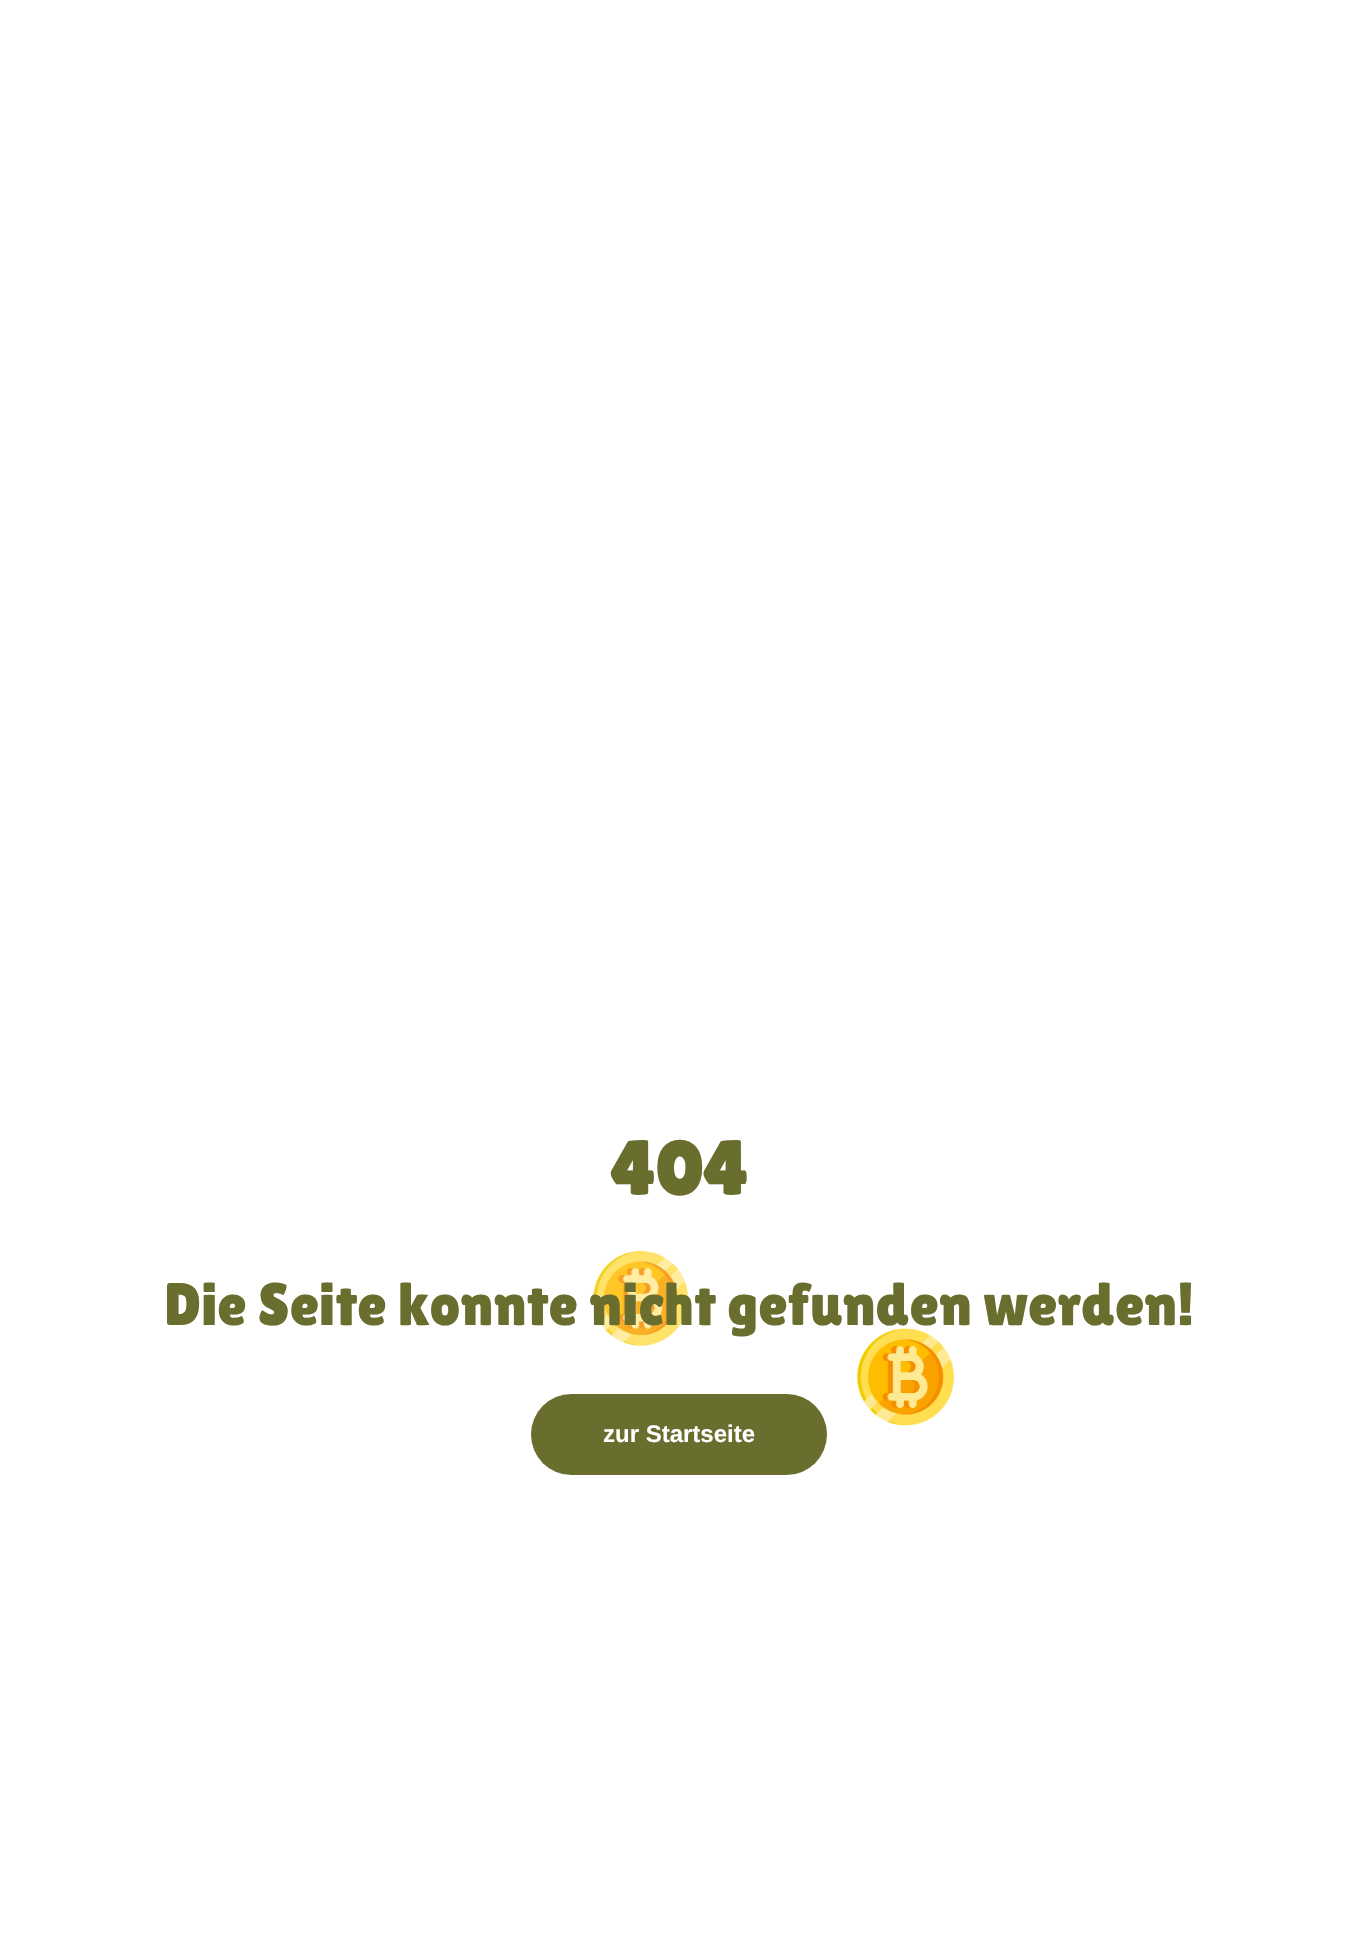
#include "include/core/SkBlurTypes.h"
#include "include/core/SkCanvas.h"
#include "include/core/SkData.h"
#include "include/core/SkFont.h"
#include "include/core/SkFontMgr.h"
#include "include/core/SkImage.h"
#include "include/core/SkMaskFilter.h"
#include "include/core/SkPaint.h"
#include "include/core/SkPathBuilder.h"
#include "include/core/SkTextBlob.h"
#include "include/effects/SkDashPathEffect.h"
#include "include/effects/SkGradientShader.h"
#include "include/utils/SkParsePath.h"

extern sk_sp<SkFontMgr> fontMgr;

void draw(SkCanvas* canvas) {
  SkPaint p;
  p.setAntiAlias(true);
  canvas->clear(SK_ColorWHITE);
  canvas->drawImageRect(SkImages::DeferredFromEncodedData(SkData::MakeFromFileName("images/1.png")), SkRect::MakeLTRB(593, 1251, 954, 1426), SkSamplingOptions());
  p.setColor(SkColorSetRGB(105, 109, 45));
  canvas->drawRoundRect(SkRect::MakeLTRB(531, 1394, 827, 1475), 40.5f, 40.5f, p);
  SkFont font1(fontMgr->matchFamilyStyle("Lilita One", SkFontStyle::Bold()), 75);
  font1.setSubpixel(true);
  canvas->drawString("404", 610, 1195, font1, p);
  SkFont font2(fontMgr->matchFamilyStyle("Lilita One", SkFontStyle::Normal()), 60);
  font2.setSubpixel(true);
  canvas->drawString("Die Seite konnte nicht gefunden werden!", 164, 1325, font2, p);
  SkFont font3(fontMgr->matchFamilyStyle("Liberation Sans", SkFontStyle::Bold()), 24);
  font3.setSubpixel(true);
  p.setColor(SK_ColorWHITE);
  canvas->drawString("zur Startseite", 603, 1442, font3, p);
}
